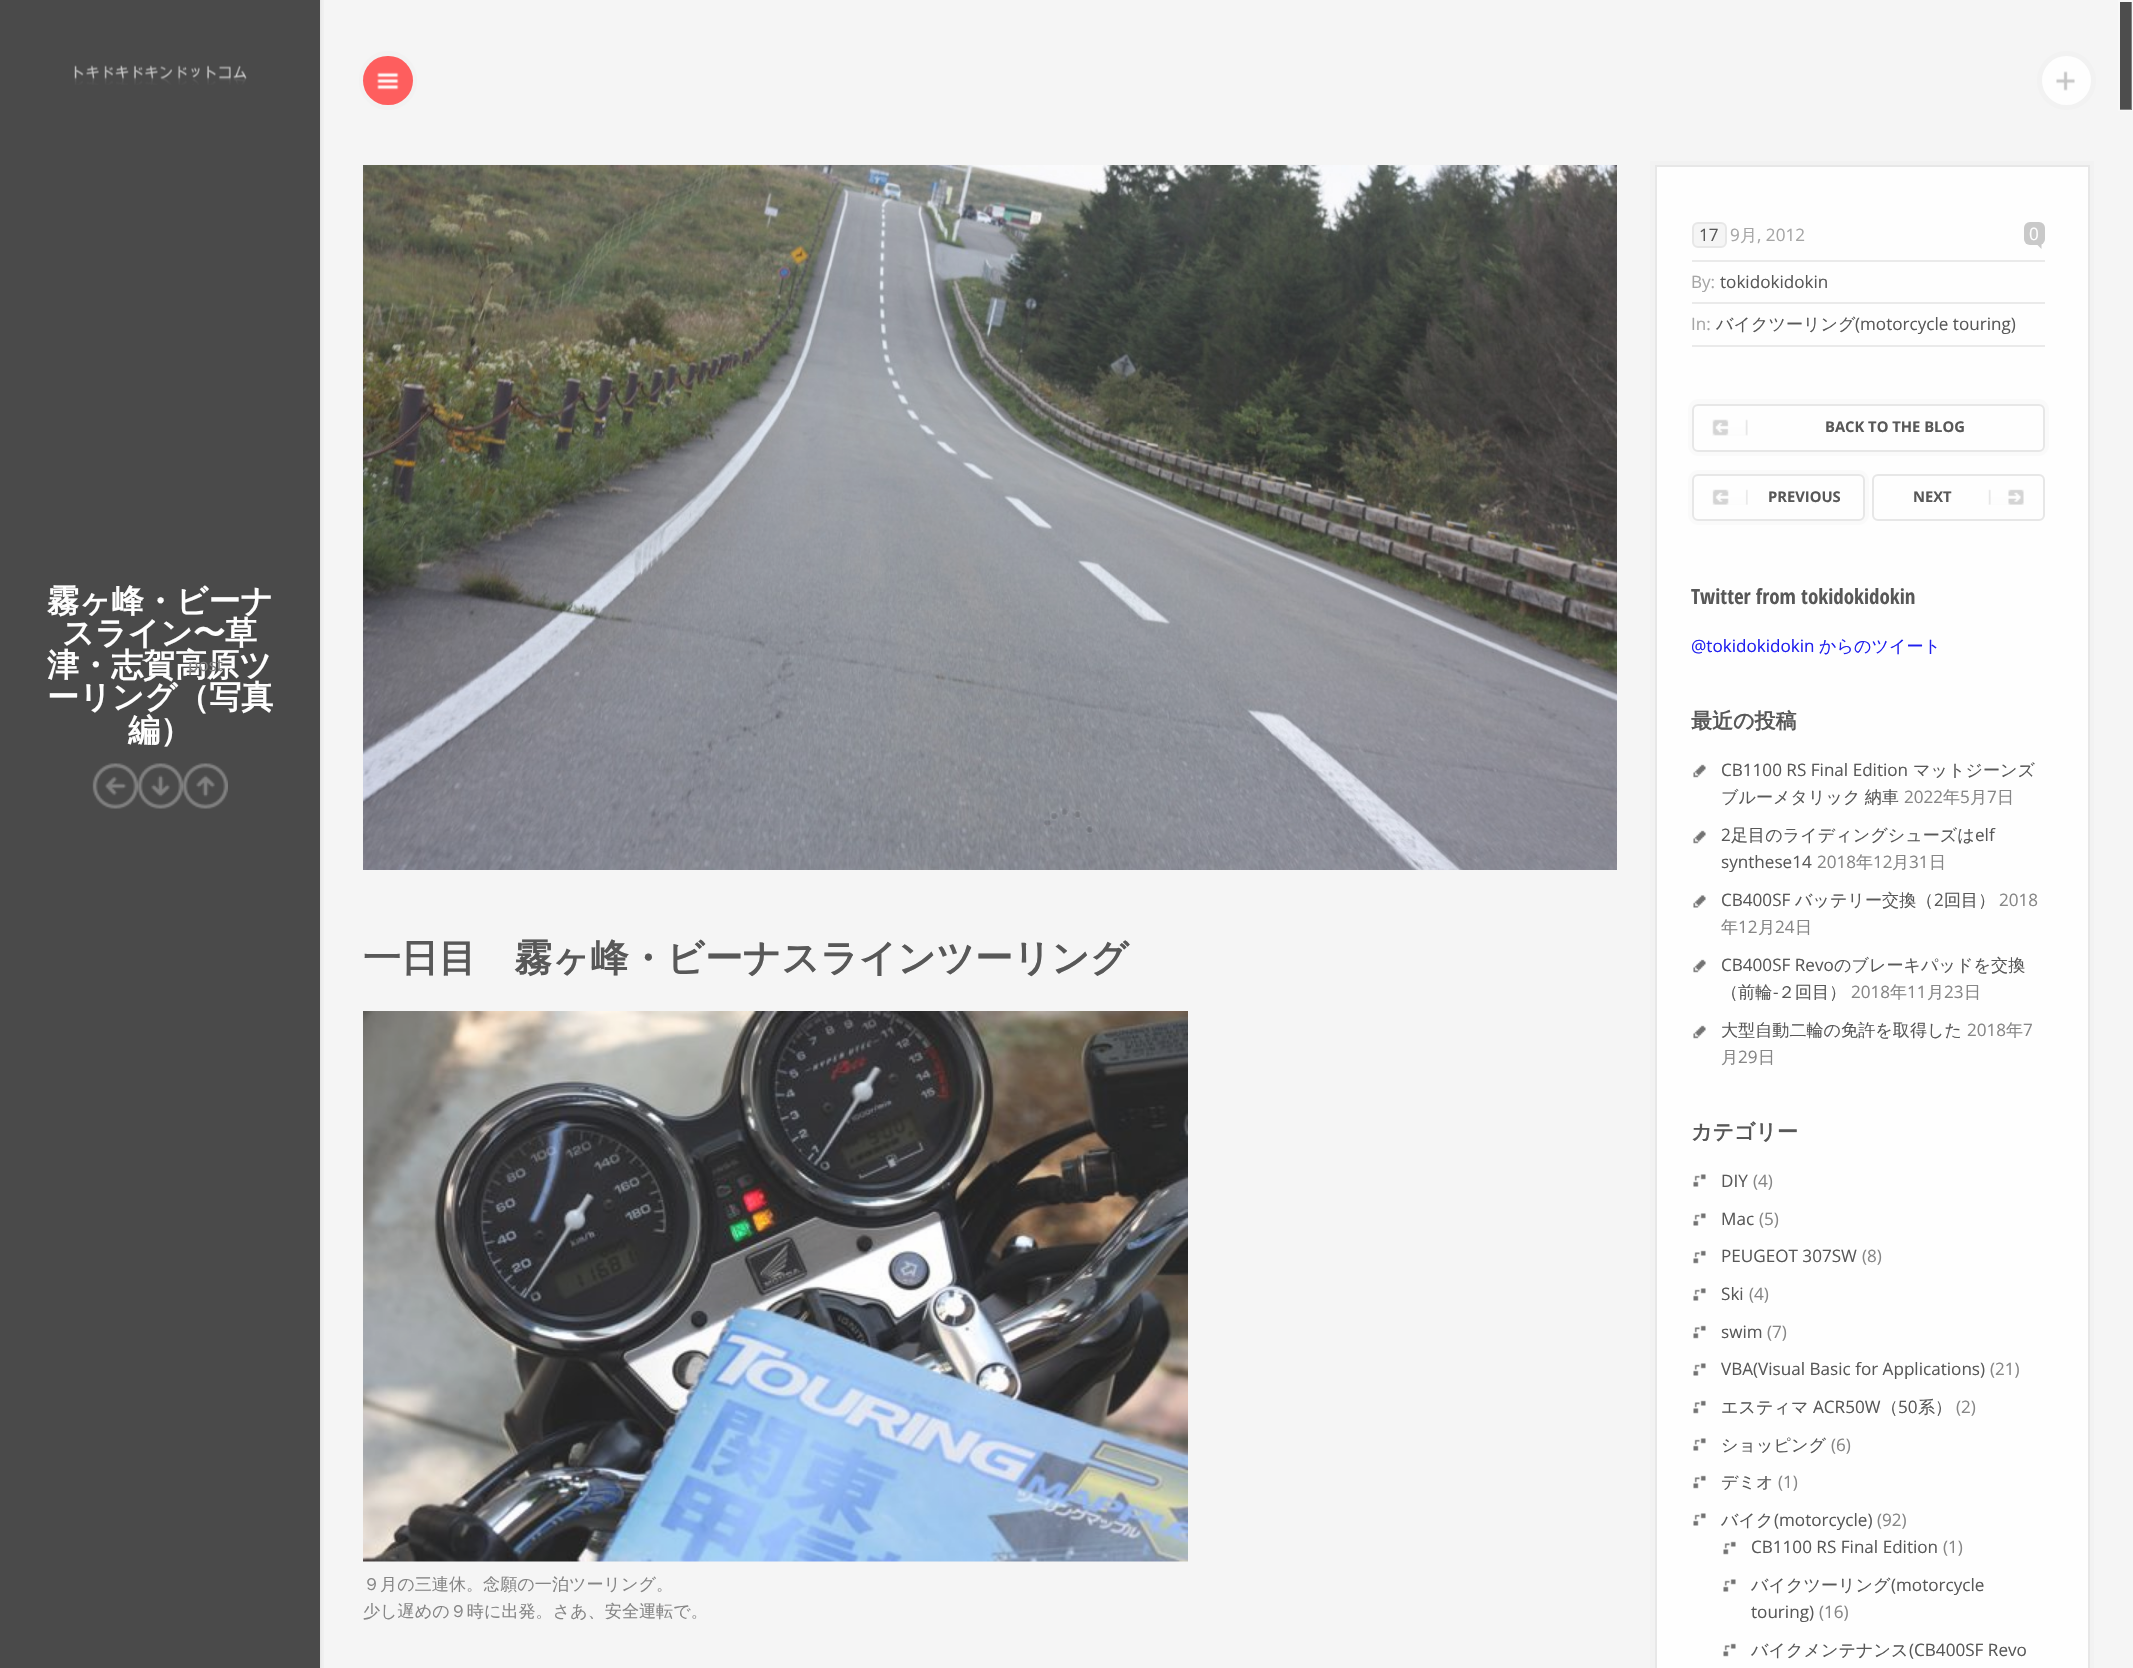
#include "include/core/SkBlurTypes.h"
#include "include/core/SkCanvas.h"
#include "include/core/SkData.h"
#include "include/core/SkFont.h"
#include "include/core/SkFontMgr.h"
#include "include/core/SkImage.h"
#include "include/core/SkMaskFilter.h"
#include "include/core/SkPaint.h"
#include "include/core/SkPathBuilder.h"
#include "include/core/SkTextBlob.h"
#include "include/effects/SkDashPathEffect.h"
#include "include/effects/SkGradientShader.h"
#include "include/utils/SkParsePath.h"

extern sk_sp<SkFontMgr> fontMgr;

void draw(SkCanvas* canvas) {
  SkPaint p;
  p.setAntiAlias(true);
  auto spacedText = [&](const char* s, float x, float y, const SkFont& font, const SkPaint& ink, float letter, float word) {
    std::vector<SkGlyphID> glyphs(font.countText(s, strlen(s), SkTextEncoding::kUTF8));
    std::vector<float> xs(glyphs.size());
    font.textToGlyphs(s, strlen(s), SkTextEncoding::kUTF8, glyphs);
    font.getXPos(glyphs, xs, x);
    float extra = 0;
    for (size_t i = 0; i < glyphs.size(); i++) {
      xs[i] += extra;
      extra += letter + word * (glyphs[i] == font.unicharToGlyph(' '));
    }
    canvas->drawTextBlob(SkTextBlob::MakeFromPosHGlyphs(glyphs, xs, y, font), 0, 0, ink);
  };
  canvas->clear(SkColorSetRGB(245, 245, 245));
  p.setColor(SkColorSetRGB(74, 74, 74));
  canvas->drawRect(SkRect::MakeLTRB(0, 0, 320, 1668), p);
  canvas->drawImageRect(SkImages::DeferredFromEncodedData(SkData::MakeFromFileName("images/1.png")), SkRect::MakeLTRB(74, 65, 247, 85), SkSamplingOptions());
  p.setStyle(SkPaint::kStroke_Style);
  p.setStrokeWidth(5);
  p.setColor(SkColorSetRGB(242, 242, 242));
  canvas->drawRoundRect(SkRect::MakeLTRB(361.5f, 53.5f, 414.5f, 107.5f), 26.5f, 26.5f, p);
  p.setStyle(SkPaint::kFill_Style);
  p.setColor(SkColorSetRGB(254, 94, 94));
  canvas->drawRoundRect(SkRect::MakeLTRB(363, 56, 413, 105), 24.5f, 24.5f, p);
  canvas->drawImageRect(SkImages::DeferredFromEncodedData(SkData::MakeFromFileName("images/2.png")), SkRect::MakeLTRB(377, 72, 399, 90), SkSamplingOptions());
  p.setStyle(SkPaint::kStroke_Style);
  p.setColor(SkColorSetRGB(242, 242, 242));
  canvas->drawCircle(2066.5f, 80.5f, 27, p);
  p.setStyle(SkPaint::kFill_Style);
  p.setColor(SkColorSetRGB(254, 254, 254));
  canvas->drawCircle(2066.5f, 80.5f, 24.5f, p);
  canvas->drawImageRect(SkImages::DeferredFromEncodedData(SkData::MakeFromFileName("images/3.png")), SkRect::MakeLTRB(2056, 71, 2075, 91), SkSamplingOptions());
  p.setColor(SkColorSetRGB(77, 77, 77));
  canvas->drawRect(SkRect::MakeLTRB(2120, 2, 2132, 110), p);
  p.setStyle(SkPaint::kStroke_Style);
  p.setStrokeWidth(2);
  p.setColor(SkColorSetARGB(77, 254, 254, 254));
  canvas->drawRect(SkRect::MakeLTRB(2119, 1, 2132, 110), p);
  canvas->drawImageRect(SkImages::DeferredFromEncodedData(SkData::MakeFromFileName("images/5.png")), SkRect::MakeLTRB(92, 763, 138, 809), SkSamplingOptions());
  canvas->drawImageRect(SkImages::DeferredFromEncodedData(SkData::MakeFromFileName("images/6.png")), SkRect::MakeLTRB(137, 763, 183, 809), SkSamplingOptions());
  canvas->drawImageRect(SkImages::DeferredFromEncodedData(SkData::MakeFromFileName("images/4.png")), SkRect::MakeLTRB(182, 763, 228, 809), SkSamplingOptions());
  canvas->drawImageRect(SkImages::DeferredFromEncodedData(SkData::MakeFromFileName("images/7.png")), SkRect::MakeLTRB(320, 0, 324, 1668), SkSamplingOptions());
  canvas->drawImageRect(SkImages::DeferredFromEncodedData(SkData::MakeFromFileName("images/8.png")), SkRect::MakeLTRB(363, 165, 1617, 870), SkSamplingOptions());
  canvas->drawImageRect(SkImages::DeferredFromEncodedData(SkData::MakeFromFileName("images/9.png")), SkRect::MakeLTRB(363, 1011, 1188, 1562), SkSamplingOptions());
  p.setStrokeWidth(5);
  p.setColor(SkColorSetRGB(242, 242, 242));
  canvas->drawRect(SkRect::MakeLTRB(1652.5f, 163.5f, 2091.5f, 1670.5f), p);
  p.setStyle(SkPaint::kFill_Style);
  p.setColor(SkColorSetRGB(254, 254, 254));
  canvas->drawRect(SkRect::MakeLTRB(1656, 166, 2089, 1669), p);
  p.setStyle(SkPaint::kStroke_Style);
  p.setStrokeWidth(2);
  p.setColor(SkColorSetRGB(231, 231, 231));
  canvas->drawRect(SkRect::MakeLTRB(1656, 166, 2089, 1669), p);
  p.setStyle(SkPaint::kFill_Style);
  p.setColor(SkColorSetRGB(234, 234, 234));
  canvas->drawRect(SkRect::MakeLTRB(1692, 260, 2045, 262), p);
  p.setColor(SkColorSetRGB(245, 245, 245));
  canvas->drawRoundRect(SkRect::MakeLTRB(1693, 223, 1726, 247), 5, 5, p);
  p.setStyle(SkPaint::kStroke_Style);
  p.setColor(SkColorSetRGB(231, 231, 231));
  canvas->drawRoundRect(SkRect::MakeLTRB(1693, 223, 1726, 247), 5, 5, p);
  p.setStyle(SkPaint::kFill_Style);
  p.setColor(SkColorSetRGB(201, 201, 201));
  canvas->drawRoundRect(SkRect::MakeLTRB(2024, 222, 2045, 245), 6, 6, p);
  canvas->drawPath(SkPathBuilder().moveTo(2034, 241.5f).lineTo(2041.5f, 241.5f).lineTo(2041.5f, 249).close().detach(), p);
  p.setColor(SkColorSetRGB(234, 234, 234));
  canvas->drawRect(SkRect::MakeLTRB(1692, 302, 2045, 304), p);
  canvas->drawRect(SkRect::MakeLTRB(1692, 345, 2045, 347), p);
  p.setStyle(SkPaint::kStroke_Style);
  p.setStrokeWidth(5);
  p.setColor(SkColorSetRGB(250, 250, 250));
  canvas->drawRoundRect(SkRect::MakeLTRB(1690.5f, 401.5f, 2046.5f, 453.5f), 8.5f, 8.5f, p);
  p.setStyle(SkPaint::kFill_Style);
  p.setColor(SkColorSetRGB(254, 254, 254));
  canvas->drawRoundRect(SkRect::MakeLTRB(1692, 404, 2045, 452), 6, 6, p);
  canvas->drawImageRect(SkImages::DeferredFromEncodedData(SkData::MakeFromFileName("images/10.png")), SkRect::MakeLTRB(1712, 419, 1748, 436), SkSamplingOptions());
  p.setStyle(SkPaint::kStroke_Style);
  p.setStrokeWidth(2);
  p.setColor(SkColorSetRGB(231, 231, 231));
  canvas->drawRoundRect(SkRect::MakeLTRB(1693, 405, 2044, 451), 5, 5, p);
  p.setStrokeWidth(5);
  p.setColor(SkColorSetRGB(250, 250, 250));
  canvas->drawRoundRect(SkRect::MakeLTRB(1690.5f, 472.5f, 1866.5f, 522.5f), 8.5f, 8.5f, p);
  p.setStyle(SkPaint::kFill_Style);
  p.setColor(SkColorSetRGB(254, 254, 254));
  canvas->drawRoundRect(SkRect::MakeLTRB(1692, 474, 1865, 521), 6, 6, p);
  canvas->drawImageRect(SkImages::DeferredFromEncodedData(SkData::MakeFromFileName("images/11.png")), SkRect::MakeLTRB(1712, 489, 1748, 505), SkSamplingOptions());
  p.setStyle(SkPaint::kStroke_Style);
  p.setStrokeWidth(2);
  p.setColor(SkColorSetRGB(231, 231, 231));
  canvas->drawRoundRect(SkRect::MakeLTRB(1693, 475, 1864, 520), 5, 5, p);
  canvas->drawImageRect(SkImages::DeferredFromEncodedData(SkData::MakeFromFileName("images/12.png")), SkRect::MakeLTRB(1988, 489, 2024, 505), SkSamplingOptions());
  canvas->drawRoundRect(SkRect::MakeLTRB(1873, 475, 2044, 520), 5, 5, p);
  canvas->drawImageRect(SkImages::DeferredFromEncodedData(SkData::MakeFromFileName("images/13.png")), SkRect::MakeLTRB(1693, 764, 1706, 778), SkSamplingOptions());
  canvas->drawImageRect(SkImages::DeferredFromEncodedData(SkData::MakeFromFileName("images/13.png")), SkRect::MakeLTRB(1693, 830, 1706, 844), SkSamplingOptions());
  canvas->drawImageRect(SkImages::DeferredFromEncodedData(SkData::MakeFromFileName("images/14.png")), SkRect::MakeLTRB(1693, 895, 1706, 908), SkSamplingOptions());
  canvas->drawImageRect(SkImages::DeferredFromEncodedData(SkData::MakeFromFileName("images/13.png")), SkRect::MakeLTRB(1693, 959, 1706, 973), SkSamplingOptions());
  canvas->drawImageRect(SkImages::DeferredFromEncodedData(SkData::MakeFromFileName("images/13.png")), SkRect::MakeLTRB(1693, 1025, 1706, 1039), SkSamplingOptions());
  canvas->drawImageRect(SkImages::DeferredFromEncodedData(SkData::MakeFromFileName("images/15.png")), SkRect::MakeLTRB(1693, 1174, 1706, 1187), SkSamplingOptions());
  canvas->drawImageRect(SkImages::DeferredFromEncodedData(SkData::MakeFromFileName("images/15.png")), SkRect::MakeLTRB(1693, 1213, 1706, 1226), SkSamplingOptions());
  canvas->drawImageRect(SkImages::DeferredFromEncodedData(SkData::MakeFromFileName("images/16.png")), SkRect::MakeLTRB(1693, 1250, 1706, 1264), SkSamplingOptions());
  canvas->drawImageRect(SkImages::DeferredFromEncodedData(SkData::MakeFromFileName("images/15.png")), SkRect::MakeLTRB(1693, 1288, 1706, 1301), SkSamplingOptions());
  canvas->drawImageRect(SkImages::DeferredFromEncodedData(SkData::MakeFromFileName("images/16.png")), SkRect::MakeLTRB(1693, 1325, 1706, 1339), SkSamplingOptions());
  canvas->drawImageRect(SkImages::DeferredFromEncodedData(SkData::MakeFromFileName("images/15.png")), SkRect::MakeLTRB(1693, 1363, 1706, 1376), SkSamplingOptions());
  canvas->drawImageRect(SkImages::DeferredFromEncodedData(SkData::MakeFromFileName("images/16.png")), SkRect::MakeLTRB(1693, 1400, 1706, 1414), SkSamplingOptions());
  canvas->drawImageRect(SkImages::DeferredFromEncodedData(SkData::MakeFromFileName("images/15.png")), SkRect::MakeLTRB(1693, 1438, 1706, 1451), SkSamplingOptions());
  canvas->drawImageRect(SkImages::DeferredFromEncodedData(SkData::MakeFromFileName("images/16.png")), SkRect::MakeLTRB(1693, 1475, 1706, 1489), SkSamplingOptions());
  canvas->drawImageRect(SkImages::DeferredFromEncodedData(SkData::MakeFromFileName("images/15.png")), SkRect::MakeLTRB(1693, 1513, 1706, 1526), SkSamplingOptions());
  canvas->drawImageRect(SkImages::DeferredFromEncodedData(SkData::MakeFromFileName("images/16.png")), SkRect::MakeLTRB(1723, 1541, 1736, 1555), SkSamplingOptions());
  canvas->drawImageRect(SkImages::DeferredFromEncodedData(SkData::MakeFromFileName("images/15.png")), SkRect::MakeLTRB(1723, 1579, 1736, 1592), SkSamplingOptions());
  canvas->drawImageRect(SkImages::DeferredFromEncodedData(SkData::MakeFromFileName("images/16.png")), SkRect::MakeLTRB(1723, 1643, 1736, 1657), SkSamplingOptions());
  canvas->drawImageRect(SkImages::DeferredFromEncodedData(SkData::MakeFromFileName("images/17.png")), SkRect::MakeLTRB(1044, 808, 1094, 834), SkSamplingOptions());
  SkFont font1(fontMgr->matchFamilyStyle("WenQuanYi Zen Hei", SkFontStyle::Bold()), 32);
  font1.setSubpixel(true);
  p.setStyle(SkPaint::kFill_Style);
  p.setColor(SkColorSetRGB(254, 254, 254));
  canvas->drawString("霧ヶ峰・ビーナ", 47, 612, font1, p);
  canvas->drawString("スライン〜草", 62, 644, font1, p);
  canvas->drawString("津・志賀高原ツ", 47, 676, font1, p);
  canvas->drawString("ーリング（写真", 47, 708, font1, p);
  canvas->drawString("編）", 128, 741, font1, p);
  SkFont font2(fontMgr->matchFamilyStyle("Open Sans", SkFontStyle::Normal()), 17);
  font2.setSubpixel(true);
  p.setColor(SkColorSetRGB(128, 128, 128));
  canvas->drawString("post", 188, 671, font2, p);
  SkFont font3(fontMgr->matchFamilyStyle("WenQuanYi Zen Hei", SkFontStyle::Bold()), 37.8f);
  font3.setSubpixel(true);
  p.setColor(SkColorSetRGB(88, 88, 88));
  canvas->drawString("一日目　霧ヶ峰・ビーナスラインツーリング", 363, 971, font3, p);
  SkFont font4(fontMgr->matchFamilyStyle("WenQuanYi Zen Hei", SkFontStyle(500, SkFontStyle::kNormal_Width, SkFontStyle::kUpright_Slant)), 17.1f);
  font4.setSubpixel(true);
  p.setColor(SkColorSetRGB(134, 134, 134));
  canvas->drawString("９月の三連休。念願の一泊ツーリング。", 363, 1590, font4, p);
  canvas->drawString("少し遅めの９時に出発。さあ、安全運転で。", 363, 1617, font4, p);
  SkFont font5(fontMgr->matchFamilyStyle("Open Sans", SkFontStyle::Normal()), 17.1f);
  font5.setSubpixel(true);
  p.setColor(SkColorSetRGB(88, 88, 88));
  canvas->drawString("17", 1699, 241, font5, p);
  p.setColor(SkColorSetRGB(166, 166, 166));
  canvas->drawString("9", 1730, 241, font5, p);
  canvas->drawString("月", 1740, 241, font4, p);
  canvas->drawString(", 2012", 1757, 241, font5, p);
  p.setColor(SkColorSetRGB(254, 254, 254));
  canvas->drawString("0", 2029, 240, font5, p);
  p.setColor(SkColorSetRGB(166, 166, 166));
  canvas->drawString("By:", 1691, 288, font5, p);
  p.setColor(SkColorSetRGB(88, 88, 88));
  canvas->drawString("tokidokidokin", 1720, 288, font5, p);
  p.setColor(SkColorSetRGB(166, 166, 166));
  canvas->drawString("In:", 1691, 330, font5, p);
  p.setColor(SkColorSetRGB(88, 88, 88));
  canvas->drawString("バイクツーリング", 1716, 330, font4, p);
  canvas->drawString("(motorcycle touring)", 1855, 330, font5, p);
  SkFont font6(fontMgr->matchFamilyStyle("Open Sans", SkFontStyle::Bold()), 14.75f);
  font6.setSubpixel(true);
  canvas->drawString("BACK TO THE BLOG", 1825, 432, font6, p);
  canvas->drawString("PREVIOUS", 1768, 502, font6, p);
  canvas->drawString("NEXT", 1913, 502, font6, p);
  SkFont font7(fontMgr->matchFamilyStyle("Open Sans Condensed", SkFontStyle::Bold()), 21);
  font7.setSubpixel(true);
  canvas->drawString("Twitter from tokidokidokin", 1691, 604, font7, p);
  p.setColor(SkColorSetRGB(32, 32, 239));
  canvas->drawString("@tokidokidokin", 1691, 652, font5, p);
  canvas->drawString("からのツイート", 1819, 652, font4, p);
  SkFont font8(fontMgr->matchFamilyStyle("WenQuanYi Zen Hei", SkFontStyle::Bold()), 21);
  font8.setSubpixel(true);
  p.setColor(SkColorSetRGB(88, 88, 88));
  canvas->drawString("最近の投稿", 1691, 728, font8, p);
  canvas->drawString("CB1100 RS Final Edition", 1721, 776, font5, p);
  canvas->drawString("マットジーンズ", 1913, 776, font4, p);
  spacedText("ブルーメタリック 納車", 1721, 803, font4, p, 0, -1);
  p.setColor(SkColorSetRGB(134, 134, 134));
  canvas->drawString("2022", 1904, 803, font5, p);
  canvas->drawString("年", 1943, 803, font4, p);
  canvas->drawString("5", 1960, 803, font5, p);
  canvas->drawString("月", 1970, 803, font4, p);
  canvas->drawString("7", 1987, 803, font5, p);
  canvas->drawString("日", 1997, 803, font4, p);
  p.setColor(SkColorSetRGB(88, 88, 88));
  canvas->drawString("2", 1721, 841, font5, p);
  canvas->drawString("足目のライディングシューズは", 1731, 841, font4, p);
  canvas->drawString("elf", 1975, 841, font5, p);
  canvas->drawString("synthese14", 1721, 868, font5, p);
  p.setColor(SkColorSetRGB(134, 134, 134));
  canvas->drawString("2018", 1817, 868, font5, p);
  canvas->drawString("年", 1856, 868, font4, p);
  canvas->drawString("12", 1873, 868, font5, p);
  canvas->drawString("月", 1892, 868, font4, p);
  canvas->drawString("31", 1909, 868, font5, p);
  canvas->drawString("日", 1929, 868, font4, p);
  p.setColor(SkColorSetRGB(88, 88, 88));
  canvas->drawString("CB400SF", 1721, 906, font5, p);
  canvas->drawString("バッテリー交換（", 1795, 906, font4, p);
  canvas->drawString("2", 1934, 906, font5, p);
  canvas->drawString("回目）", 1944, 906, font4, p);
  p.setColor(SkColorSetRGB(134, 134, 134));
  canvas->drawString("2018", 1999, 906, font5, p);
  canvas->drawString("年", 1721, 933, font4, p);
  canvas->drawString("12", 1738, 933, font5, p);
  canvas->drawString("月", 1758, 933, font4, p);
  canvas->drawString("24", 1775, 933, font5, p);
  canvas->drawString("日", 1795, 933, font4, p);
  p.setColor(SkColorSetRGB(88, 88, 88));
  canvas->drawString("CB400SF Revo", 1721, 971, font5, p);
  canvas->drawString("のブレーキパッドを交換", 1834, 971, font4, p);
  canvas->drawString("（前輪", 1721, 998, font4, p);
  canvas->drawString("-", 1773, 998, font5, p);
  canvas->drawString("２回目）", 1778, 998, font4, p);
  p.setColor(SkColorSetRGB(134, 134, 134));
  canvas->drawString("2018", 1851, 998, font5, p);
  canvas->drawString("年", 1890, 998, font4, p);
  canvas->drawString("11", 1907, 998, font5, p);
  canvas->drawString("月", 1927, 998, font4, p);
  canvas->drawString("23", 1944, 998, font5, p);
  canvas->drawString("日", 1964, 998, font4, p);
  p.setColor(SkColorSetRGB(88, 88, 88));
  canvas->drawString("大型自動二輪の免許を取得した", 1721, 1036, font4, p);
  p.setColor(SkColorSetRGB(134, 134, 134));
  canvas->drawString("2018", 1967, 1036, font5, p);
  canvas->drawString("年", 2006, 1036, font4, p);
  canvas->drawString("7", 2023, 1036, font5, p);
  canvas->drawString("月", 1721, 1063, font4, p);
  canvas->drawString("29", 1738, 1063, font5, p);
  canvas->drawString("日", 1758, 1063, font4, p);
  p.setColor(SkColorSetRGB(88, 88, 88));
  canvas->drawString("カテゴリー", 1691, 1139, font8, p);
  canvas->drawString("DIY", 1721, 1187, font5, p);
  p.setColor(SkColorSetRGB(134, 134, 134));
  canvas->drawString("(4)", 1753, 1187, font5, p);
  p.setColor(SkColorSetRGB(88, 88, 88));
  canvas->drawString("Mac", 1721, 1225, font5, p);
  p.setColor(SkColorSetRGB(134, 134, 134));
  canvas->drawString("(5)", 1759, 1225, font5, p);
  p.setColor(SkColorSetRGB(88, 88, 88));
  canvas->drawString("PEUGEOT 307SW", 1721, 1262, font5, p);
  p.setColor(SkColorSetRGB(134, 134, 134));
  canvas->drawString("(8)", 1862, 1262, font5, p);
  p.setColor(SkColorSetRGB(88, 88, 88));
  canvas->drawString("Ski", 1721, 1300, font5, p);
  p.setColor(SkColorSetRGB(134, 134, 134));
  canvas->drawString("(4)", 1749, 1300, font5, p);
  p.setColor(SkColorSetRGB(88, 88, 88));
  canvas->drawString("swim", 1721, 1338, font5, p);
  p.setColor(SkColorSetRGB(134, 134, 134));
  canvas->drawString("(7)", 1767, 1338, font5, p);
  p.setColor(SkColorSetRGB(88, 88, 88));
  canvas->drawString("VBA(Visual Basic for Applications)", 1721, 1375, font5, p);
  p.setColor(SkColorSetRGB(134, 134, 134));
  canvas->drawString("(21)", 1990, 1375, font5, p);
  p.setColor(SkColorSetRGB(88, 88, 88));
  canvas->drawString("エスティマ", 1721, 1413, font4, p);
  canvas->drawString("ACR50W", 1813, 1413, font5, p);
  canvas->drawString("（", 1881, 1413, font4, p);
  canvas->drawString("50", 1898, 1413, font5, p);
  canvas->drawString("系）", 1918, 1413, font4, p);
  p.setColor(SkColorSetRGB(134, 134, 134));
  canvas->drawString("(2)", 1956, 1413, font5, p);
  p.setColor(SkColorSetRGB(88, 88, 88));
  canvas->drawString("ショッピング", 1721, 1451, font4, p);
  p.setColor(SkColorSetRGB(134, 134, 134));
  canvas->drawString("(6)", 1831, 1451, font5, p);
  p.setColor(SkColorSetRGB(88, 88, 88));
  canvas->drawString("デミオ", 1721, 1488, font4, p);
  p.setColor(SkColorSetRGB(134, 134, 134));
  canvas->drawString("(1)", 1778, 1488, font5, p);
  p.setColor(SkColorSetRGB(88, 88, 88));
  canvas->drawString("バイク", 1721, 1526, font4, p);
  canvas->drawString("(motorcycle)", 1774, 1526, font5, p);
  p.setColor(SkColorSetRGB(134, 134, 134));
  canvas->drawString("(92)", 1877, 1526, font5, p);
  p.setColor(SkColorSetRGB(88, 88, 88));
  canvas->drawString("CB1100 RS Final Edition", 1751, 1553, font5, p);
  p.setColor(SkColorSetRGB(134, 134, 134));
  canvas->drawString("(1)", 1943, 1553, font5, p);
  p.setColor(SkColorSetRGB(88, 88, 88));
  canvas->drawString("バイクツーリング", 1751, 1591, font4, p);
  canvas->drawString("(motorcycle", 1891, 1591, font5, p);
  canvas->drawString("touring)", 1751, 1618, font5, p);
  p.setColor(SkColorSetRGB(134, 134, 134));
  canvas->drawString("(16)", 1819, 1618, font5, p);
  p.setColor(SkColorSetRGB(88, 88, 88));
  canvas->drawString("バイクメンテナンス", 1751, 1656, font4, p);
  canvas->drawString("(CB400SF Revo", 1909, 1656, font5, p);
}
